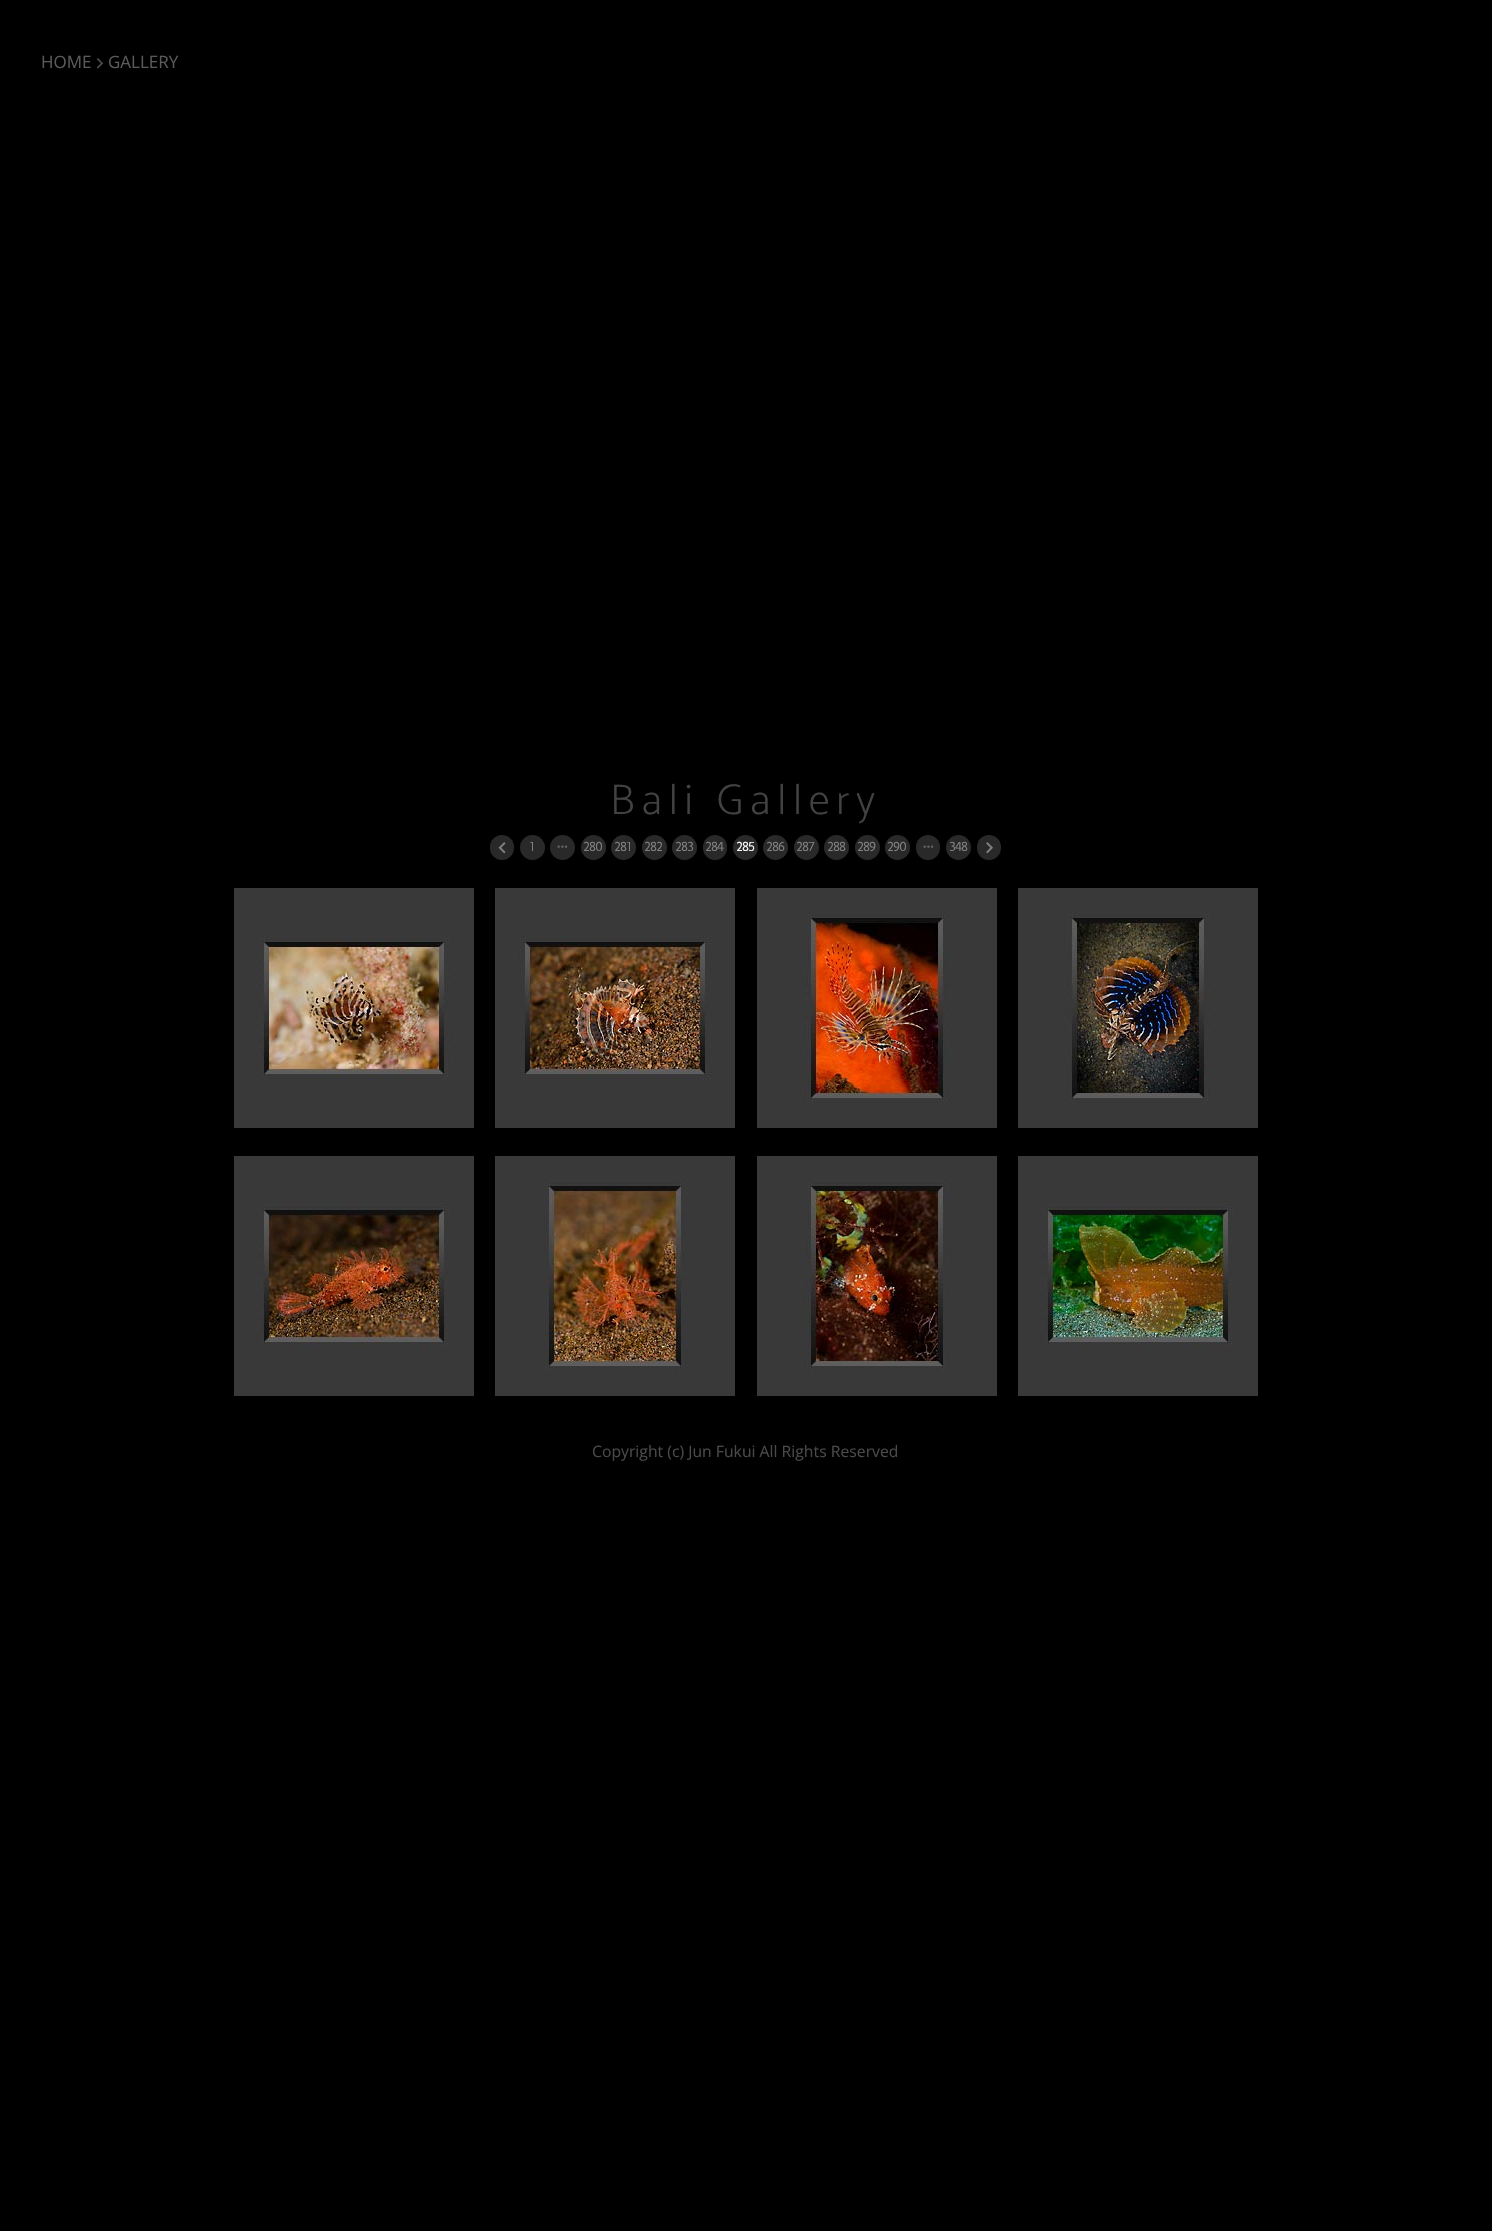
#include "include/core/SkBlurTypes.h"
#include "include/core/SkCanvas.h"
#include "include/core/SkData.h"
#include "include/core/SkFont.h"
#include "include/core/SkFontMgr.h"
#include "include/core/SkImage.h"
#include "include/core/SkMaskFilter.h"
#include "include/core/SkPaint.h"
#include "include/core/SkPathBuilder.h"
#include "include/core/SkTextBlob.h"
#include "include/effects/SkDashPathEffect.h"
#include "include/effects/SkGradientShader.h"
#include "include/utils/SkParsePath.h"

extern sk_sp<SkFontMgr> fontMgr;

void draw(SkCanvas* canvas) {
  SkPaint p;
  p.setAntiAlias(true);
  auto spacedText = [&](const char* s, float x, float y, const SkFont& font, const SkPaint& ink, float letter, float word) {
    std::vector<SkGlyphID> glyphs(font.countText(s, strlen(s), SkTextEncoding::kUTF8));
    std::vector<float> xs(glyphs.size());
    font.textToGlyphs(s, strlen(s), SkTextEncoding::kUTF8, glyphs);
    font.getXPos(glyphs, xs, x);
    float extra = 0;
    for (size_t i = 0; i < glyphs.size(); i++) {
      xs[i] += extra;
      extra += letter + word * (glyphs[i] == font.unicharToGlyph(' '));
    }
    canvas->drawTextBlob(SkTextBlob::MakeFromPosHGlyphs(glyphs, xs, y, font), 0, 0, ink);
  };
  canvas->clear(SK_ColorBLACK);
  canvas->drawImageRect(SkImages::DeferredFromEncodedData(SkData::MakeFromFileName("images/1.png")), SkRect::MakeLTRB(96, 58, 104, 69), SkSamplingOptions());
  p.setColor(SkColorSetRGB(41, 41, 41));
  canvas->drawRoundRect(SkRect::MakeLTRB(490, 835, 514, 860), 12, 12, p);
  canvas->drawImageRect(SkImages::DeferredFromEncodedData(SkData::MakeFromFileName("images/2.png")), SkRect::MakeLTRB(498, 842, 506, 854), SkSamplingOptions());
  canvas->drawCircle(532.5f, 847.5f, 12.5f, p);
  canvas->drawCircle(562.5f, 847.5f, 12.5f, p);
  canvas->drawImageRect(SkImages::DeferredFromEncodedData(SkData::MakeFromFileName("images/3.png")), SkRect::MakeLTRB(557, 845, 568, 848), SkSamplingOptions());
  canvas->drawCircle(593.5f, 847.5f, 12.5f, p);
  canvas->drawCircle(623.5f, 847.5f, 12.5f, p);
  canvas->drawCircle(654.5f, 847.5f, 12.5f, p);
  canvas->drawCircle(684.5f, 847.5f, 12.5f, p);
  canvas->drawRoundRect(SkRect::MakeLTRB(703, 835, 727, 860), 12, 12, p);
  canvas->drawCircle(745.5f, 847.5f, 12.5f, p);
  canvas->drawCircle(775.5f, 847.5f, 12.5f, p);
  canvas->drawCircle(806.5f, 847.5f, 12.5f, p);
  canvas->drawCircle(836.5f, 847.5f, 12.5f, p);
  canvas->drawCircle(867.5f, 847.5f, 12.5f, p);
  canvas->drawCircle(897.5f, 847.5f, 12.5f, p);
  canvas->drawRoundRect(SkRect::MakeLTRB(916, 835, 940, 860), 12, 12, p);
  canvas->drawImageRect(SkImages::DeferredFromEncodedData(SkData::MakeFromFileName("images/3.png")), SkRect::MakeLTRB(923, 845, 934, 848), SkSamplingOptions());
  canvas->drawCircle(958.5f, 847.5f, 12.5f, p);
  canvas->drawRoundRect(SkRect::MakeLTRB(977, 835, 1001, 860), 12, 12, p);
  canvas->drawImageRect(SkImages::DeferredFromEncodedData(SkData::MakeFromFileName("images/4.png")), SkRect::MakeLTRB(986, 842, 993, 854), SkSamplingOptions());
  canvas->drawImageRect(SkImages::DeferredFromEncodedData(SkData::MakeFromFileName("images/5.png")), SkRect::MakeLTRB(234, 888, 474, 1128), SkSamplingOptions());
  canvas->drawImageRect(SkImages::DeferredFromEncodedData(SkData::MakeFromFileName("images/6.png")), SkRect::MakeLTRB(495, 888, 735, 1128), SkSamplingOptions());
  canvas->drawImageRect(SkImages::DeferredFromEncodedData(SkData::MakeFromFileName("images/7.png")), SkRect::MakeLTRB(757, 888, 997, 1128), SkSamplingOptions());
  canvas->drawImageRect(SkImages::DeferredFromEncodedData(SkData::MakeFromFileName("images/8.png")), SkRect::MakeLTRB(1018, 888, 1258, 1128), SkSamplingOptions());
  canvas->drawImageRect(SkImages::DeferredFromEncodedData(SkData::MakeFromFileName("images/9.png")), SkRect::MakeLTRB(234, 1156, 474, 1396), SkSamplingOptions());
  canvas->drawImageRect(SkImages::DeferredFromEncodedData(SkData::MakeFromFileName("images/10.png")), SkRect::MakeLTRB(495, 1156, 735, 1396), SkSamplingOptions());
  canvas->drawImageRect(SkImages::DeferredFromEncodedData(SkData::MakeFromFileName("images/11.png")), SkRect::MakeLTRB(757, 1156, 997, 1396), SkSamplingOptions());
  canvas->drawImageRect(SkImages::DeferredFromEncodedData(SkData::MakeFromFileName("images/12.png")), SkRect::MakeLTRB(1018, 1156, 1258, 1396), SkSamplingOptions());
  SkFont font1(fontMgr->matchFamilyStyle("Open Sans", SkFontStyle::Normal()), 17);
  font1.setSubpixel(true);
  p.setColor(SkColorSetRGB(90, 90, 90));
  canvas->drawString("HOME", 41, 68, font1, p);
  canvas->drawString("GALLERY", 108, 68, font1, p);
  SkFont font2(fontMgr->matchFamilyStyle("Catamaran", SkFontStyle(100, SkFontStyle::kNormal_Width, SkFontStyle::kUpright_Slant)), 43);
  font2.setSubpixel(true);
  p.setColor(SkColorSetRGB(66, 66, 66));
  spacedText("Bali Gallery", 610, 814, font2, p, 6.75f, 0);
  SkFont font3(fontMgr->matchFamilyStyle("Duru Sans", SkFontStyle::Normal()), 12);
  font3.setSubpixel(true);
  p.setColor(SkColorSetRGB(130, 130, 130));
  spacedText("1", 529, 851, font3, p, -1, 0);
  spacedText("280", 583, 851, font3, p, -1, 0);
  spacedText("281", 614, 851, font3, p, -1, 0);
  spacedText("282", 644, 851, font3, p, -1, 0);
  spacedText("283", 675, 851, font3, p, -1, 0);
  spacedText("284", 705, 851, font3, p, -1, 0);
  p.setColor(SK_ColorWHITE);
  spacedText("285", 736, 851, font3, p, -1, 0);
  p.setColor(SkColorSetRGB(130, 130, 130));
  spacedText("286", 766, 851, font3, p, -1, 0);
  spacedText("287", 796, 851, font3, p, -1, 0);
  spacedText("288", 827, 851, font3, p, -1, 0);
  spacedText("289", 857, 851, font3, p, -1, 0);
  spacedText("290", 887, 851, font3, p, -1, 0);
  spacedText("348", 949, 851, font3, p, -1, 0);
  SkFont font4(fontMgr->matchFamilyStyle("Open Sans", SkFontStyle::Normal()), 15.75f);
  font4.setSubpixel(true);
  p.setColor(SkColorSetRGB(74, 74, 74));
  canvas->drawString("Copyright (c) Jun Fukui All Rights Reserved", 592, 1457, font4, p);
}
